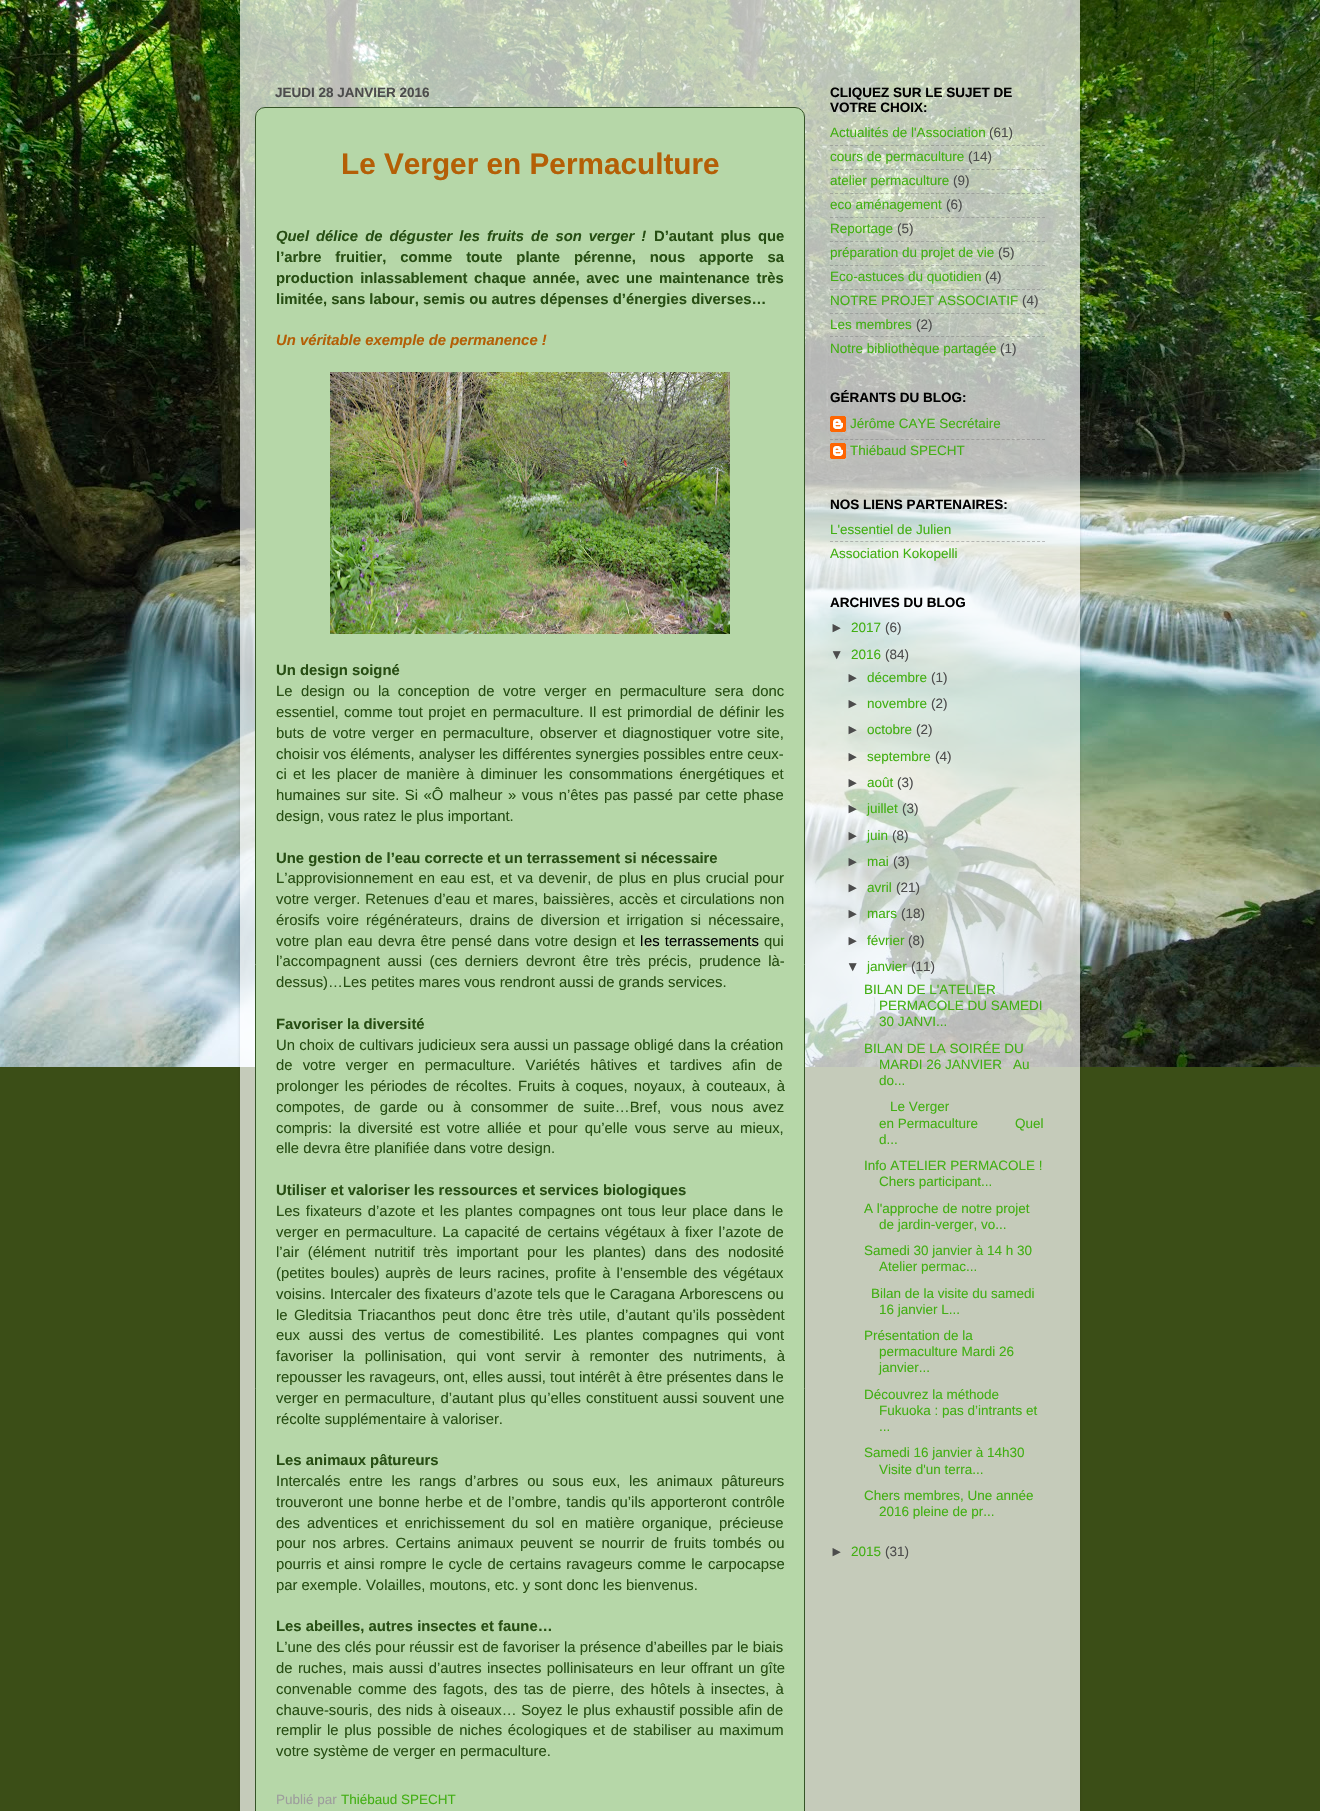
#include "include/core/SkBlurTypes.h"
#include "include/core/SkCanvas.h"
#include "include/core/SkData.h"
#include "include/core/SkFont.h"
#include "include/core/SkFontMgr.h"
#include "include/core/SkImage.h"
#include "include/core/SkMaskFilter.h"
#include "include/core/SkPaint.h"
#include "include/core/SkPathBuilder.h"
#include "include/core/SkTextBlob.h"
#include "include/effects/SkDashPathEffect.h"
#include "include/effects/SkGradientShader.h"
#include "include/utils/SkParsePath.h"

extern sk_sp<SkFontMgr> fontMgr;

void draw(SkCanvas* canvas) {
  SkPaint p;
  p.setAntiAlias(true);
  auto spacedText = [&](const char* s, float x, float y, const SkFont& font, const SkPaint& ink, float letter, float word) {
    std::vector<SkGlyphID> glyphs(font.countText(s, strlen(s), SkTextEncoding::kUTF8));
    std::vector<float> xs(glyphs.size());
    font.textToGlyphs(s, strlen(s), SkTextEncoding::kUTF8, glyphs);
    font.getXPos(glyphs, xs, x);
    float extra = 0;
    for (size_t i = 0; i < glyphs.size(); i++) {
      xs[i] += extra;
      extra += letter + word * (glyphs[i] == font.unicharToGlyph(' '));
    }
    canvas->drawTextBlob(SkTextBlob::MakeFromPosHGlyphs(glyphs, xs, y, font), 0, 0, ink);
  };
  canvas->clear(SkColorSetRGB(59, 78, 23));
  canvas->drawImageRect(SkImages::DeferredFromEncodedData(SkData::MakeFromFileName("images/1.png")), SkRect::MakeLTRB(0, 0, 1320, 1067), SkSamplingOptions());
  canvas->save();
  canvas->clipPath(SkPathBuilder(SkPathFillType::kEvenOdd).moveTo(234, 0).lineTo(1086, 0).lineTo(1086, 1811).lineTo(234, 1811).close().moveTo(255, -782).lineTo(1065, -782).cubicTo(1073.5f, -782, 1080, -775.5f, 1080, -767).lineTo(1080, 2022).cubicTo(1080, 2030.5f, 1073.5f, 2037, 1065, 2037).lineTo(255, 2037).cubicTo(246.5f, 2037, 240, 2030.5f, 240, 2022).lineTo(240, -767).cubicTo(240, -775.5f, 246.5f, -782, 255, -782).close().detach(), true);
  p.setColor(SkColorSetARGB(38, 0, 0, 0));
  p.setMaskFilter(SkMaskFilter::MakeBlur(kNormal_SkBlurStyle, 1.5f));
  canvas->drawRoundRect(SkRect::MakeLTRB(240, -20, 1080, 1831), 15, 15, p);
  p.setMaskFilter(nullptr);
  canvas->restore();
  p.setColor(SkColorSetARGB(179, 255, 255, 255));
  canvas->drawRect(SkRect::MakeLTRB(240, 0, 1080, 1811), p);
  p.setColor(SkColorSetRGB(182, 215, 168));
  canvas->drawRoundRect(SkRect::MakeLTRB(255.5f, 107.5f, 804.5f, 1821.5f), 9.5f, 9.5f, p);
  p.setStyle(SkPaint::kStroke_Style);
  p.setStrokeWidth(1);
  p.setColor(SkColorSetRGB(53, 84, 39));
  canvas->drawRoundRect(SkRect::MakeLTRB(255.5f, 107.5f, 804.5f, 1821.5f), 9.5f, 9.5f, p);
  canvas->drawImageRect(SkImages::DeferredFromEncodedData(SkData::MakeFromFileName("images/2.png")), SkRect::MakeLTRB(330, 372, 730, 634), SkSamplingOptions());
  p.setColor(SkColorSetARGB(128, 128, 128, 128));
  p.setPathEffect(SkDashPathEffect::Make({{3, 2.05f}}, 0));
  canvas->drawPath(SkPathBuilder().moveTo(830, 145.5f).lineTo(1045, 145.5f).detach(), p);
  p.setPathEffect(nullptr);
  p.setPathEffect(SkDashPathEffect::Make({{3, 2.05f}}, 0));
  canvas->drawPath(SkPathBuilder().moveTo(830, 169.5f).lineTo(1045, 169.5f).detach(), p);
  p.setPathEffect(nullptr);
  p.setPathEffect(SkDashPathEffect::Make({{3, 2.05f}}, 0));
  canvas->drawPath(SkPathBuilder().moveTo(830, 193.5f).lineTo(1045, 193.5f).detach(), p);
  p.setPathEffect(nullptr);
  p.setPathEffect(SkDashPathEffect::Make({{3, 2.05f}}, 0));
  canvas->drawPath(SkPathBuilder().moveTo(830, 217.5f).lineTo(1045, 217.5f).detach(), p);
  p.setPathEffect(nullptr);
  p.setPathEffect(SkDashPathEffect::Make({{3, 2.05f}}, 0));
  canvas->drawPath(SkPathBuilder().moveTo(830, 241.5f).lineTo(1045, 241.5f).detach(), p);
  p.setPathEffect(nullptr);
  p.setPathEffect(SkDashPathEffect::Make({{3, 2.05f}}, 0));
  canvas->drawPath(SkPathBuilder().moveTo(830, 265.5f).lineTo(1045, 265.5f).detach(), p);
  p.setPathEffect(nullptr);
  p.setPathEffect(SkDashPathEffect::Make({{3, 2.05f}}, 0));
  canvas->drawPath(SkPathBuilder().moveTo(830, 289.5f).lineTo(1045, 289.5f).detach(), p);
  p.setPathEffect(nullptr);
  p.setPathEffect(SkDashPathEffect::Make({{3, 2.05f}}, 0));
  canvas->drawPath(SkPathBuilder().moveTo(830, 313.5f).lineTo(1045, 313.5f).detach(), p);
  p.setPathEffect(nullptr);
  p.setPathEffect(SkDashPathEffect::Make({{3, 2.05f}}, 0));
  canvas->drawPath(SkPathBuilder().moveTo(830, 336.5f).lineTo(1045, 336.5f).detach(), p);
  p.setPathEffect(nullptr);
  canvas->drawImageRect(SkImages::DeferredFromEncodedData(SkData::MakeFromFileName("images/3.png")), SkRect::MakeLTRB(830, 416, 846, 432), SkSamplingOptions());
  p.setPathEffect(SkDashPathEffect::Make({{3, 2.05f}}, 0));
  canvas->drawPath(SkPathBuilder().moveTo(830, 439.5f).lineTo(1045, 439.5f).detach(), p);
  p.setPathEffect(nullptr);
  canvas->drawImageRect(SkImages::DeferredFromEncodedData(SkData::MakeFromFileName("images/4.png")), SkRect::MakeLTRB(830, 443, 846, 459), SkSamplingOptions());
  p.setPathEffect(SkDashPathEffect::Make({{3, 2.05f}}, 0));
  canvas->drawPath(SkPathBuilder().moveTo(830, 541.5f).lineTo(1045, 541.5f).detach(), p);
  p.setPathEffect(nullptr);
  SkFont font1(fontMgr->matchFamilyStyle("Liberation Sans", SkFontStyle::Bold()), 13.5f);
  font1.setSubpixel(true);
  p.setStyle(SkPaint::kFill_Style);
  p.setColor(SkColorSetRGB(76, 76, 76));
  canvas->drawString("JEUDI 28 JANVIER 2016", 275, 97, font1, p);
  SkFont font2(fontMgr->matchFamilyStyle("Liberation Sans", SkFontStyle::Bold()), 29.75f);
  font2.setSubpixel(true);
  p.setColor(SkColorSetRGB(180, 95, 6));
  canvas->drawString("Le Verger en Permaculture", 341, 174, font2, p);
  SkFont font3(fontMgr->matchFamilyStyle("Liberation Sans", SkFontStyle::BoldItalic()), 14.85f);
  font3.setSubpixel(true);
  p.setColor(SkColorSetRGB(39, 78, 19));
  spacedText("Quel délice de déguster les fruits de son verger !", 276, 241, font3, p, 0, 2.9f);
  SkFont font4(fontMgr->matchFamilyStyle("Liberation Sans", SkFontStyle::Bold()), 14.85f);
  font4.setSubpixel(true);
  spacedText("D’autant plus que", 654, 241, font4, p, 0, 2.9f);
  spacedText("l’arbre fruitier, comme toute plante pérenne, nous apporte sa", 276, 262, font4, p, 0, 9.75f);
  spacedText("production inlassablement chaque année, avec une maintenance très", 276, 283, font4, p, 0, 2.5f);
  canvas->drawString("limitée, sans labour, semis ou autres dépenses d’énergies diverses…", 276, 304, font4, p);
  p.setColor(SkColorSetRGB(180, 95, 6));
  canvas->drawString("Un véritable exemple de permanence !", 276, 345, font3, p);
  p.setColor(SkColorSetRGB(39, 78, 19));
  canvas->drawString("Un design soigné", 276, 675, font4, p);
  SkFont font5(fontMgr->matchFamilyStyle("Liberation Sans", SkFontStyle::Normal()), 14.85f);
  font5.setSubpixel(true);
  spacedText("Le design ou la conception de votre verger en permaculture sera donc", 276, 696, font5, p, 0, 4.25f);
  spacedText("essentiel, comme tout projet en permaculture. Il est primordial de définir les", 276, 717, font5, p, 0, 1.25f);
  spacedText("buts de votre verger en permaculture, observer et diagnostiquer votre site,", 276, 738, font5, p, 0, 2);
  canvas->drawString("choisir vos éléments, analyser les différentes synergies possibles entre ceux-", 276, 759, font5, p);
  spacedText("ci et les placer de manière à diminuer les consommations énergétiques et", 276, 779, font5, p, 0, 2.1f);
  spacedText("humaines sur site. Si «Ô malheur » vous n’êtes pas passé par cette phase", 276, 800, font5, p, 0, 1.4f);
  canvas->drawString("design, vous ratez le plus important.", 276, 821, font5, p);
  canvas->drawString("Une gestion de l’eau correcte et un terrassement si nécessaire", 276, 863, font4, p);
  spacedText("L’approvisionnement en eau est, et va devenir, de plus en plus crucial pour", 276, 883, font5, p, 0, 1.25f);
  spacedText("votre verger. Retenues d’eau et mares, baissières, accès et circulations non", 276, 904, font5, p, 0, 0.9f);
  spacedText("érosifs voire régénérateurs, drains de diversion et irrigation si nécessaire,", 276, 925, font5, p, 0, 2.9f);
  spacedText("votre plan eau devra être pensé dans votre design et", 276, 946, font5, p, 0, 1.25f);
  p.setColor(SK_ColorBLACK);
  canvas->drawString("l", 640, 946, font5, p);
  spacedText("es terrassements", 644, 946, font5, p, 0, 1);
  p.setColor(SkColorSetRGB(39, 78, 19));
  canvas->drawString("qui", 764, 946, font5, p);
  spacedText("l’accompagnent aussi (ces derniers devront être très précis, prudence là-", 276, 966, font5, p, 0, 3.25f);
  canvas->drawString("dessus)…Les petites mares vous rendront aussi de grands services.", 276, 987, font5, p);
  canvas->drawString("Favoriser la diversité", 276, 1029, font4, p);
  spacedText("Un choix de cultivars judicieux sera aussi un passage obligé dans la création", 276, 1050, font5, p, 0, 0.25f);
  spacedText("de votre verger en permaculture. Variétés hâtives et tardives afin de", 276, 1070, font5, p, 0, 6);
  spacedText("prolonger les périodes de récoltes. Fruits à coques, noyaux, à couteaux, à", 276, 1091, font5, p, 0, 2);
  spacedText("compotes, de garde ou à consommer de suite…Bref, vous nous avez", 276, 1112, font5, p, 0, 5.25f);
  spacedText("compris: la diversité est votre alliée et pour qu’elle vous serve au mieux,", 276, 1133, font5, p, 0, 2.9f);
  canvas->drawString("elle devra être planifiée dans votre design.", 276, 1153, font5, p);
  canvas->drawString("Utiliser et valoriser les ressources et services biologiques", 276, 1195, font4, p);
  spacedText("Les fixateurs d’azote et les plantes compagnes ont tous leur place dans le", 276, 1216, font5, p, 0, 1.75f);
  spacedText("verger en permaculture. La capacité de certains végétaux à fixer l’azote de", 276, 1237, font5, p, 0, 1.5f);
  spacedText("l’air (élément nutritif très important pour les plantes) dans des nodosité", 276, 1257, font5, p, 0, 4.5f);
  spacedText("(petites boules) auprès de leurs racines, profite à l’ensemble des végétaux", 276, 1278, font5, p, 0, 1.8f);
  spacedText("voisins. Intercaler des fixateurs d’azote tels que le Caragana Arborescens ou", 276, 1299, font5, p, 0, 0.25f);
  spacedText("le Gleditsia Triacanthos peut donc être très utile, d’autant qu’ils possèdent", 276, 1320, font5, p, 0, 2.25f);
  spacedText("eux aussi des vertus de comestibilité. Les plantes compagnes qui vont", 276, 1340, font5, p, 0, 4.5f);
  spacedText("favoriser la pollinisation, qui vont servir à remonter des nutriments, à", 276, 1361, font5, p, 0, 6);
  canvas->drawString("repousser les ravageurs, ont, elles aussi, tout intérêt à être présentes dans le", 276, 1382, font5, p);
  spacedText("verger en permaculture, d’autant plus qu’elles constituent aussi souvent une", 276, 1403, font5, p, 0, 0.9f);
  canvas->drawString("récolte supplémentaire à valoriser.", 276, 1424, font5, p);
  canvas->drawString("Les animaux pâtureurs", 276, 1465, font4, p);
  spacedText("Intercalés entre les rangs d’arbres ou sous eux, les animaux pâtureurs", 276, 1486, font5, p, 0, 4.5f);
  spacedText("trouveront une bonne herbe et de l’ombre, tandis qu’ils apporteront contrôle", 276, 1507, font5, p, 0, 1.25f);
  spacedText("des adventices et enrichissement du sol en matière organique, précieuse", 276, 1528, font5, p, 0, 3);
  spacedText("pour nos arbres. Certains animaux peuvent se nourrir de fruits tombés ou", 276, 1548, font5, p, 0, 2.4f);
  spacedText("pourris et ainsi rompre le cycle de certains ravageurs comme le carpocapse", 276, 1569, font5, p, 0, 1);
  canvas->drawString("par exemple. Volailles, moutons, etc. y sont donc les bienvenus.", 276, 1590, font5, p);
  canvas->drawString("Les abeilles, autres insectes et faune…", 276, 1631, font4, p);
  spacedText("L’une des clés pour réussir est de favoriser la présence d’abeilles par le biais", 276, 1652, font5, p, 0, 0.1f);
  spacedText("de ruches, mais aussi d’autres insectes pollinisateurs en leur offrant un gîte", 276, 1673, font5, p, 0, 1.25f);
  spacedText("convenable comme des fagots, des tas de pierre, des hôtels à insectes, à", 276, 1694, font5, p, 0, 2);
  spacedText("chauve-souris, des nids à oiseaux… Soyez le plus exhaustif possible afin de", 276, 1715, font5, p, 0, 0.5f);
  spacedText("remplir le plus possible de niches écologiques et de stabiliser au maximum", 276, 1735, font5, p, 0, 1.5f);
  canvas->drawString("votre système de verger en permaculture.", 276, 1756, font5, p);
  SkFont font6(fontMgr->matchFamilyStyle("Liberation Sans", SkFontStyle::Normal()), 13.5f);
  font6.setSubpixel(true);
  p.setColor(SkColorSetRGB(157, 157, 157));
  canvas->drawString("Publié par", 276, 1804, font6, p);
  p.setColor(SkColorSetRGB(66, 175, 19));
  canvas->drawString("Thiébaud SPECHT", 341, 1804, font6, p);
  p.setColor(SK_ColorBLACK);
  canvas->drawString("CLIQUEZ SUR LE SUJET DE", 830, 97, font1, p);
  canvas->drawString("VOTRE CHOIX:", 830, 112, font1, p);
  p.setColor(SkColorSetRGB(66, 175, 19));
  canvas->drawString("Actualités de l'Association", 830, 137, font6, p);
  p.setColor(SkColorSetRGB(76, 76, 76));
  canvas->drawString("(61)", 989, 137, font6, p);
  p.setColor(SkColorSetRGB(66, 175, 19));
  canvas->drawString("cours de permaculture", 830, 161, font6, p);
  p.setColor(SkColorSetRGB(76, 76, 76));
  canvas->drawString("(14)", 968, 161, font6, p);
  p.setColor(SkColorSetRGB(66, 175, 19));
  canvas->drawString("atelier permaculture", 830, 185, font6, p);
  p.setColor(SkColorSetRGB(76, 76, 76));
  canvas->drawString("(9)", 953, 185, font6, p);
  p.setColor(SkColorSetRGB(66, 175, 19));
  canvas->drawString("eco aménagement", 830, 209, font6, p);
  p.setColor(SkColorSetRGB(76, 76, 76));
  canvas->drawString("(6)", 946, 209, font6, p);
  p.setColor(SkColorSetRGB(66, 175, 19));
  canvas->drawString("Reportage", 830, 233, font6, p);
  p.setColor(SkColorSetRGB(76, 76, 76));
  canvas->drawString("(5)", 897, 233, font6, p);
  p.setColor(SkColorSetRGB(66, 175, 19));
  canvas->drawString("préparation du projet de vie", 830, 257, font6, p);
  p.setColor(SkColorSetRGB(76, 76, 76));
  canvas->drawString("(5)", 998, 257, font6, p);
  p.setColor(SkColorSetRGB(66, 175, 19));
  canvas->drawString("Eco-astuces du quotidien", 830, 281, font6, p);
  p.setColor(SkColorSetRGB(76, 76, 76));
  canvas->drawString("(4)", 985, 281, font6, p);
  p.setColor(SkColorSetRGB(66, 175, 19));
  canvas->drawString("NOTRE PROJET ASSOCIATIF", 830, 305, font6, p);
  p.setColor(SkColorSetRGB(76, 76, 76));
  canvas->drawString("(4)", 1022, 305, font6, p);
  p.setColor(SkColorSetRGB(66, 175, 19));
  canvas->drawString("Les membres", 830, 329, font6, p);
  p.setColor(SkColorSetRGB(76, 76, 76));
  canvas->drawString("(2)", 916, 329, font6, p);
  p.setColor(SkColorSetRGB(66, 175, 19));
  canvas->drawString("Notre bibliothèque partagée", 830, 353, font6, p);
  p.setColor(SkColorSetRGB(76, 76, 76));
  canvas->drawString("(1)", 1000, 353, font6, p);
  p.setColor(SK_ColorBLACK);
  canvas->drawString("GÉRANTS DU BLOG:", 830, 402, font1, p);
  p.setColor(SkColorSetRGB(66, 175, 19));
  canvas->drawString("Jérôme CAYE Secrétaire", 850, 428, font6, p);
  canvas->drawString("Thiébaud SPECHT", 850, 455, font6, p);
  p.setColor(SK_ColorBLACK);
  canvas->drawString("NOS LIENS PARTENAIRES:", 830, 509, font1, p);
  p.setColor(SkColorSetRGB(66, 175, 19));
  canvas->drawString("L'essentiel de Julien", 830, 534, font6, p);
  canvas->drawString("Association Kokopelli", 830, 558, font6, p);
  p.setColor(SK_ColorBLACK);
  canvas->drawString("ARCHIVES DU BLOG", 830, 607, font1, p);
  p.setColor(SkColorSetRGB(76, 76, 76));
  canvas->drawString("►", 830, 632, font6, p);
  p.setColor(SkColorSetRGB(66, 175, 19));
  canvas->drawString("2017", 851, 632, font6, p);
  p.setColor(SkColorSetRGB(76, 76, 76));
  canvas->drawString("(6)", 885, 632, font6, p);
  canvas->drawString("▼", 830, 659, font6, p);
  p.setColor(SkColorSetRGB(66, 175, 19));
  canvas->drawString("2016", 851, 659, font6, p);
  p.setColor(SkColorSetRGB(76, 76, 76));
  canvas->drawString("(84)", 885, 659, font6, p);
  canvas->drawString("►", 846, 682, font6, p);
  p.setColor(SkColorSetRGB(66, 175, 19));
  canvas->drawString("décembre", 867, 682, font6, p);
  p.setColor(SkColorSetRGB(76, 76, 76));
  canvas->drawString("(1)", 931, 682, font6, p);
  canvas->drawString("►", 846, 708, font6, p);
  p.setColor(SkColorSetRGB(66, 175, 19));
  canvas->drawString("novembre", 867, 708, font6, p);
  p.setColor(SkColorSetRGB(76, 76, 76));
  canvas->drawString("(2)", 931, 708, font6, p);
  canvas->drawString("►", 846, 734, font6, p);
  p.setColor(SkColorSetRGB(66, 175, 19));
  canvas->drawString("octobre", 867, 734, font6, p);
  p.setColor(SkColorSetRGB(76, 76, 76));
  canvas->drawString("(2)", 916, 734, font6, p);
  canvas->drawString("►", 846, 761, font6, p);
  p.setColor(SkColorSetRGB(66, 175, 19));
  canvas->drawString("septembre", 867, 761, font6, p);
  p.setColor(SkColorSetRGB(76, 76, 76));
  canvas->drawString("(4)", 935, 761, font6, p);
  canvas->drawString("►", 846, 787, font6, p);
  p.setColor(SkColorSetRGB(66, 175, 19));
  canvas->drawString("août", 867, 787, font6, p);
  p.setColor(SkColorSetRGB(76, 76, 76));
  canvas->drawString("(3)", 897, 787, font6, p);
  canvas->drawString("►", 846, 813, font6, p);
  p.setColor(SkColorSetRGB(66, 175, 19));
  canvas->drawString("juillet", 867, 813, font6, p);
  p.setColor(SkColorSetRGB(76, 76, 76));
  canvas->drawString("(3)", 902, 813, font6, p);
  canvas->drawString("►", 846, 840, font6, p);
  p.setColor(SkColorSetRGB(66, 175, 19));
  canvas->drawString("juin", 867, 840, font6, p);
  p.setColor(SkColorSetRGB(76, 76, 76));
  canvas->drawString("(8)", 892, 840, font6, p);
  canvas->drawString("►", 846, 866, font6, p);
  p.setColor(SkColorSetRGB(66, 175, 19));
  canvas->drawString("mai", 867, 866, font6, p);
  p.setColor(SkColorSetRGB(76, 76, 76));
  canvas->drawString("(3)", 893, 866, font6, p);
  canvas->drawString("►", 846, 892, font6, p);
  p.setColor(SkColorSetRGB(66, 175, 19));
  canvas->drawString("avril", 867, 892, font6, p);
  p.setColor(SkColorSetRGB(76, 76, 76));
  canvas->drawString("(21)", 896, 892, font6, p);
  canvas->drawString("►", 846, 918, font6, p);
  p.setColor(SkColorSetRGB(66, 175, 19));
  canvas->drawString("mars", 867, 918, font6, p);
  p.setColor(SkColorSetRGB(76, 76, 76));
  canvas->drawString("(18)", 901, 918, font6, p);
  canvas->drawString("►", 846, 945, font6, p);
  p.setColor(SkColorSetRGB(66, 175, 19));
  canvas->drawString("février", 867, 945, font6, p);
  p.setColor(SkColorSetRGB(76, 76, 76));
  canvas->drawString("(8)", 908, 945, font6, p);
  canvas->drawString("▼", 846, 971, font6, p);
  p.setColor(SkColorSetRGB(66, 175, 19));
  canvas->drawString("janvier", 867, 971, font6, p);
  p.setColor(SkColorSetRGB(76, 76, 76));
  canvas->drawString("(11)", 911, 971, font6, p);
  p.setColor(SkColorSetRGB(66, 175, 19));
  canvas->drawString("BILAN DE L'ATELIER", 864, 994, font6, p);
  canvas->drawString("PERMACOLE DU SAMEDI", 879, 1010, font6, p);
  canvas->drawString("30 JANVI...", 879, 1026, font6, p);
  canvas->drawString("BILAN DE LA SOIRÉE DU", 864, 1053, font6, p);
  canvas->drawString("MARDI 26 JANVIER", 879, 1069, font6, p);
  canvas->drawString("Au", 1013, 1069, font6, p);
  canvas->drawString("do...", 879, 1085, font6, p);
  canvas->drawString("Le Verger", 890, 1111, font6, p);
  canvas->drawString("en Permaculture", 879, 1128, font6, p);
  canvas->drawString("Quel", 1015, 1128, font6, p);
  canvas->drawString("d...", 879, 1144, font6, p);
  canvas->drawString("Info ATELIER PERMACOLE !", 864, 1170, font6, p);
  canvas->drawString("Chers participant...", 879, 1186, font6, p);
  canvas->drawString("A l'approche de notre projet", 864, 1213, font6, p);
  canvas->drawString("de jardin-verger, vo...", 879, 1229, font6, p);
  canvas->drawString("Samedi 30 janvier à 14 h 30", 864, 1255, font6, p);
  canvas->drawString("Atelier permac...", 879, 1271, font6, p);
  canvas->drawString("Bilan de la visite du samedi", 871, 1298, font6, p);
  canvas->drawString("16 janvier L...", 879, 1314, font6, p);
  canvas->drawString("Présentation de la", 864, 1340, font6, p);
  canvas->drawString("permaculture Mardi 26", 879, 1356, font6, p);
  canvas->drawString("janvier...", 879, 1372, font6, p);
  canvas->drawString("Découvrez la méthode", 864, 1399, font6, p);
  canvas->drawString("Fukuoka : pas d’intrants et", 879, 1415, font6, p);
  canvas->drawString("...", 879, 1431, font6, p);
  canvas->drawString("Samedi 16 janvier à 14h30", 864, 1457, font6, p);
  canvas->drawString("Visite d'un terra...", 879, 1474, font6, p);
  canvas->drawString("Chers membres, Une année", 864, 1500, font6, p);
  canvas->drawString("2016 pleine de pr...", 879, 1516, font6, p);
  p.setColor(SkColorSetRGB(76, 76, 76));
  canvas->drawString("►", 830, 1556, font6, p);
  p.setColor(SkColorSetRGB(66, 175, 19));
  canvas->drawString("2015", 851, 1556, font6, p);
  p.setColor(SkColorSetRGB(76, 76, 76));
  canvas->drawString("(31)", 885, 1556, font6, p);
}
